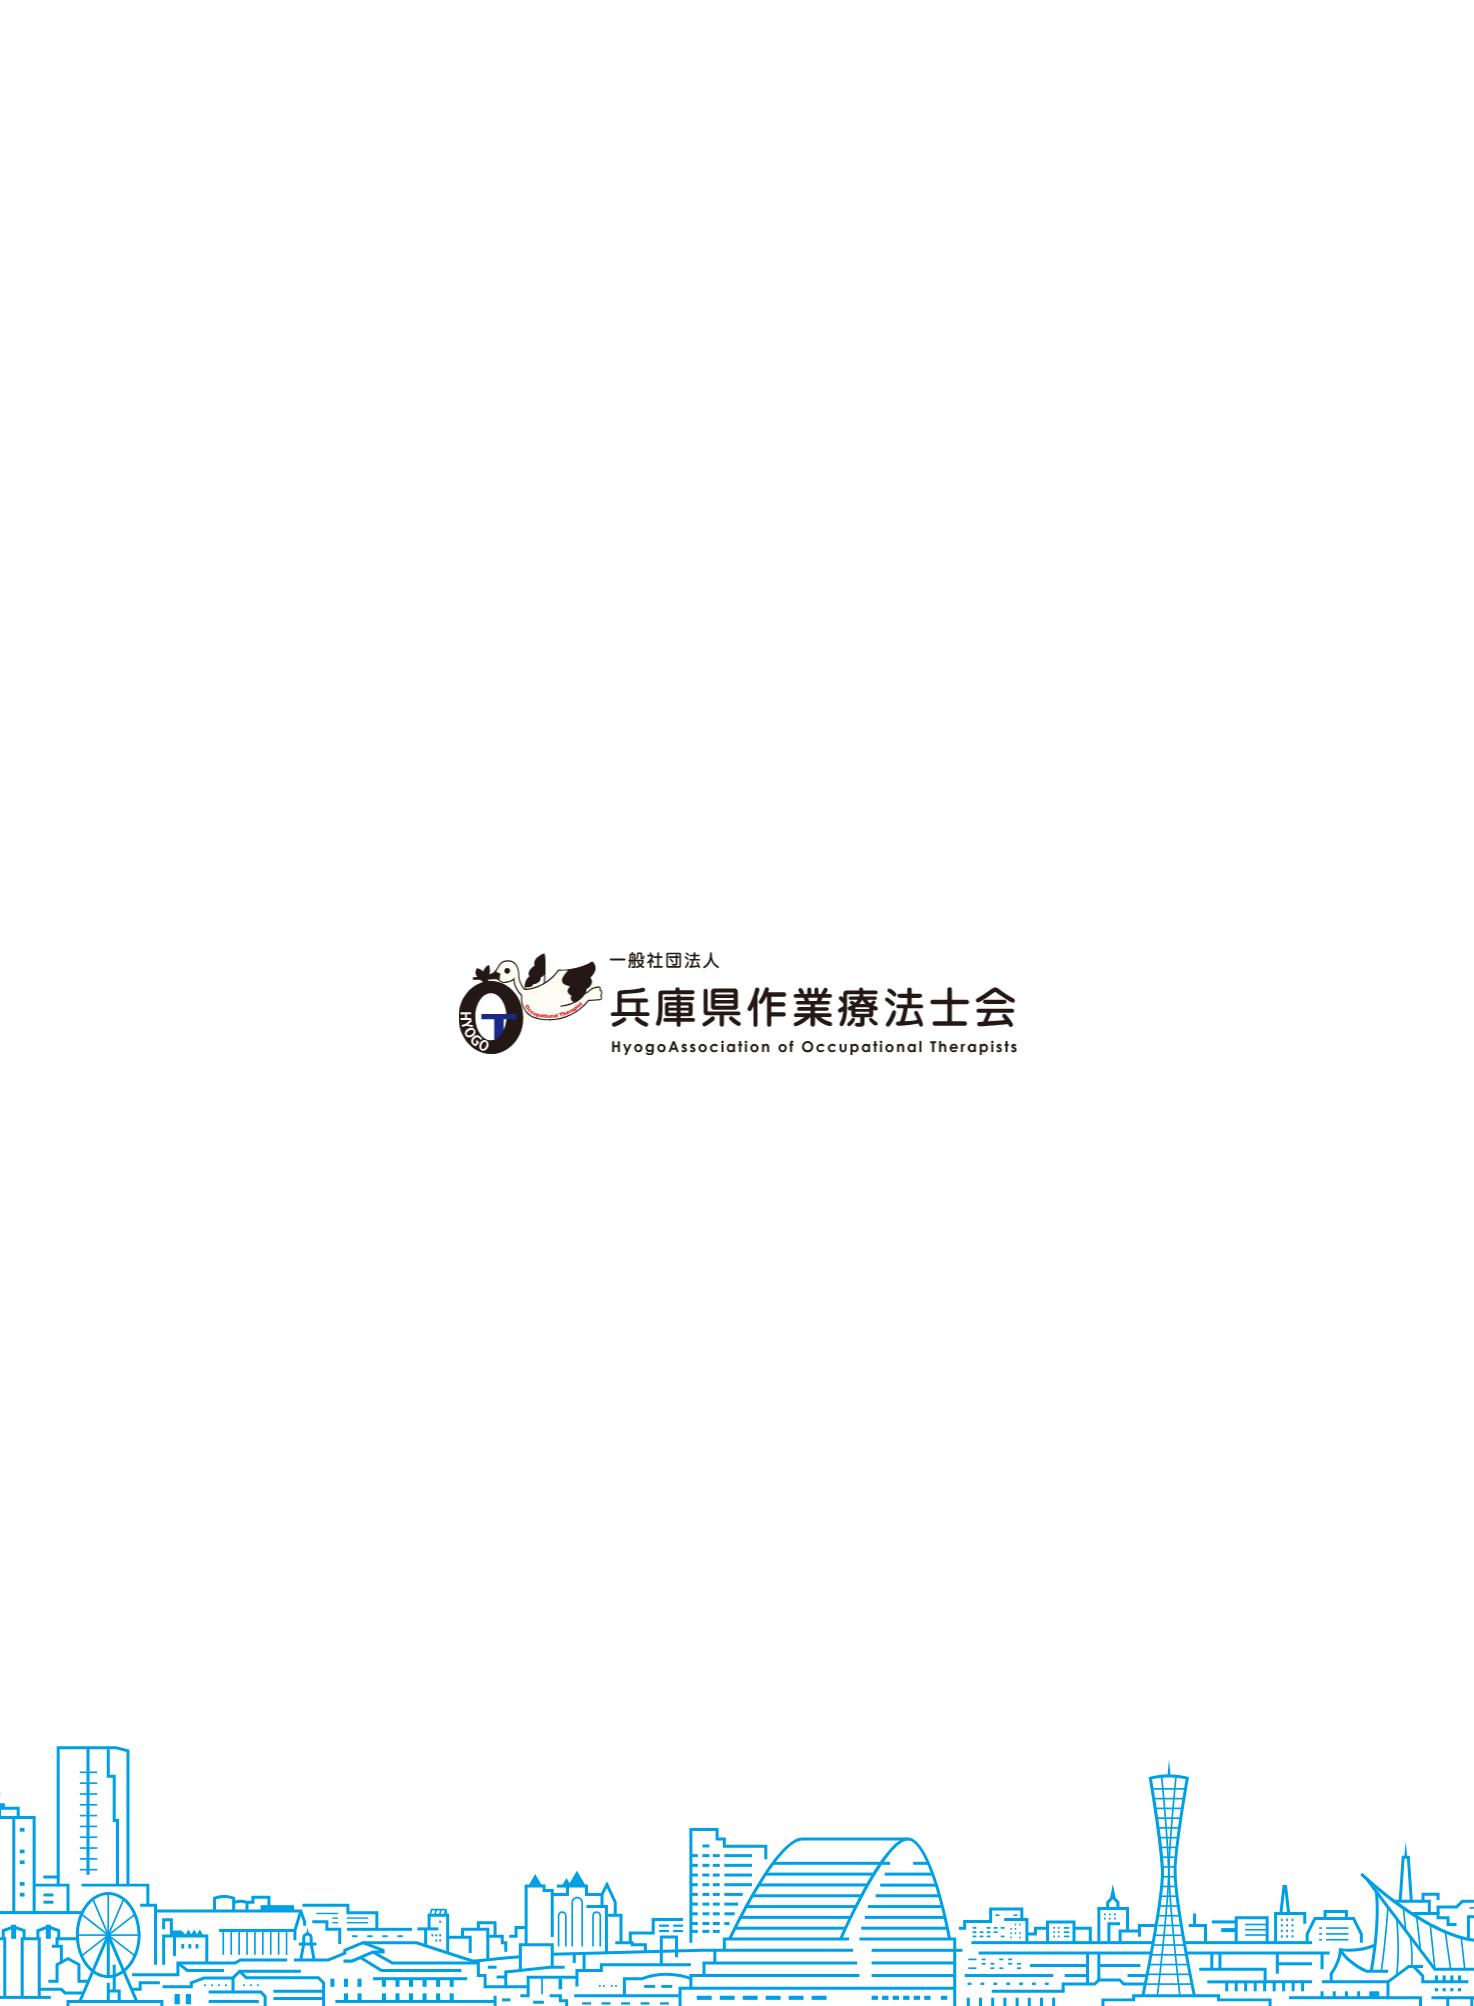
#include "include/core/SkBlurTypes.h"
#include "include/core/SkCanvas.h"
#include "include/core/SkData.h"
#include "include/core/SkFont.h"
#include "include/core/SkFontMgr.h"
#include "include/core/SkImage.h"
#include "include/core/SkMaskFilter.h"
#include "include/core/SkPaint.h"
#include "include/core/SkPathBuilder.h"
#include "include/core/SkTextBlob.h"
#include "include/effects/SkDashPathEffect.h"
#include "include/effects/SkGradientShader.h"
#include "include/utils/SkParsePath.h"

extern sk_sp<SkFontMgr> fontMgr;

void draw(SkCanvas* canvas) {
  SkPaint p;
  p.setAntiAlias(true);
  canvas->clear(SK_ColorWHITE);
  canvas->drawImageRect(SkImages::DeferredFromEncodedData(SkData::MakeFromFileName("images/1.png")), SkRect::MakeLTRB(0, 1746, 1474, 2006), SkSamplingOptions());
  canvas->drawImageRect(SkImages::DeferredFromEncodedData(SkData::MakeFromFileName("images/2.png")), SkRect::MakeLTRB(459, 952, 1017, 1055), SkSamplingOptions());
}
